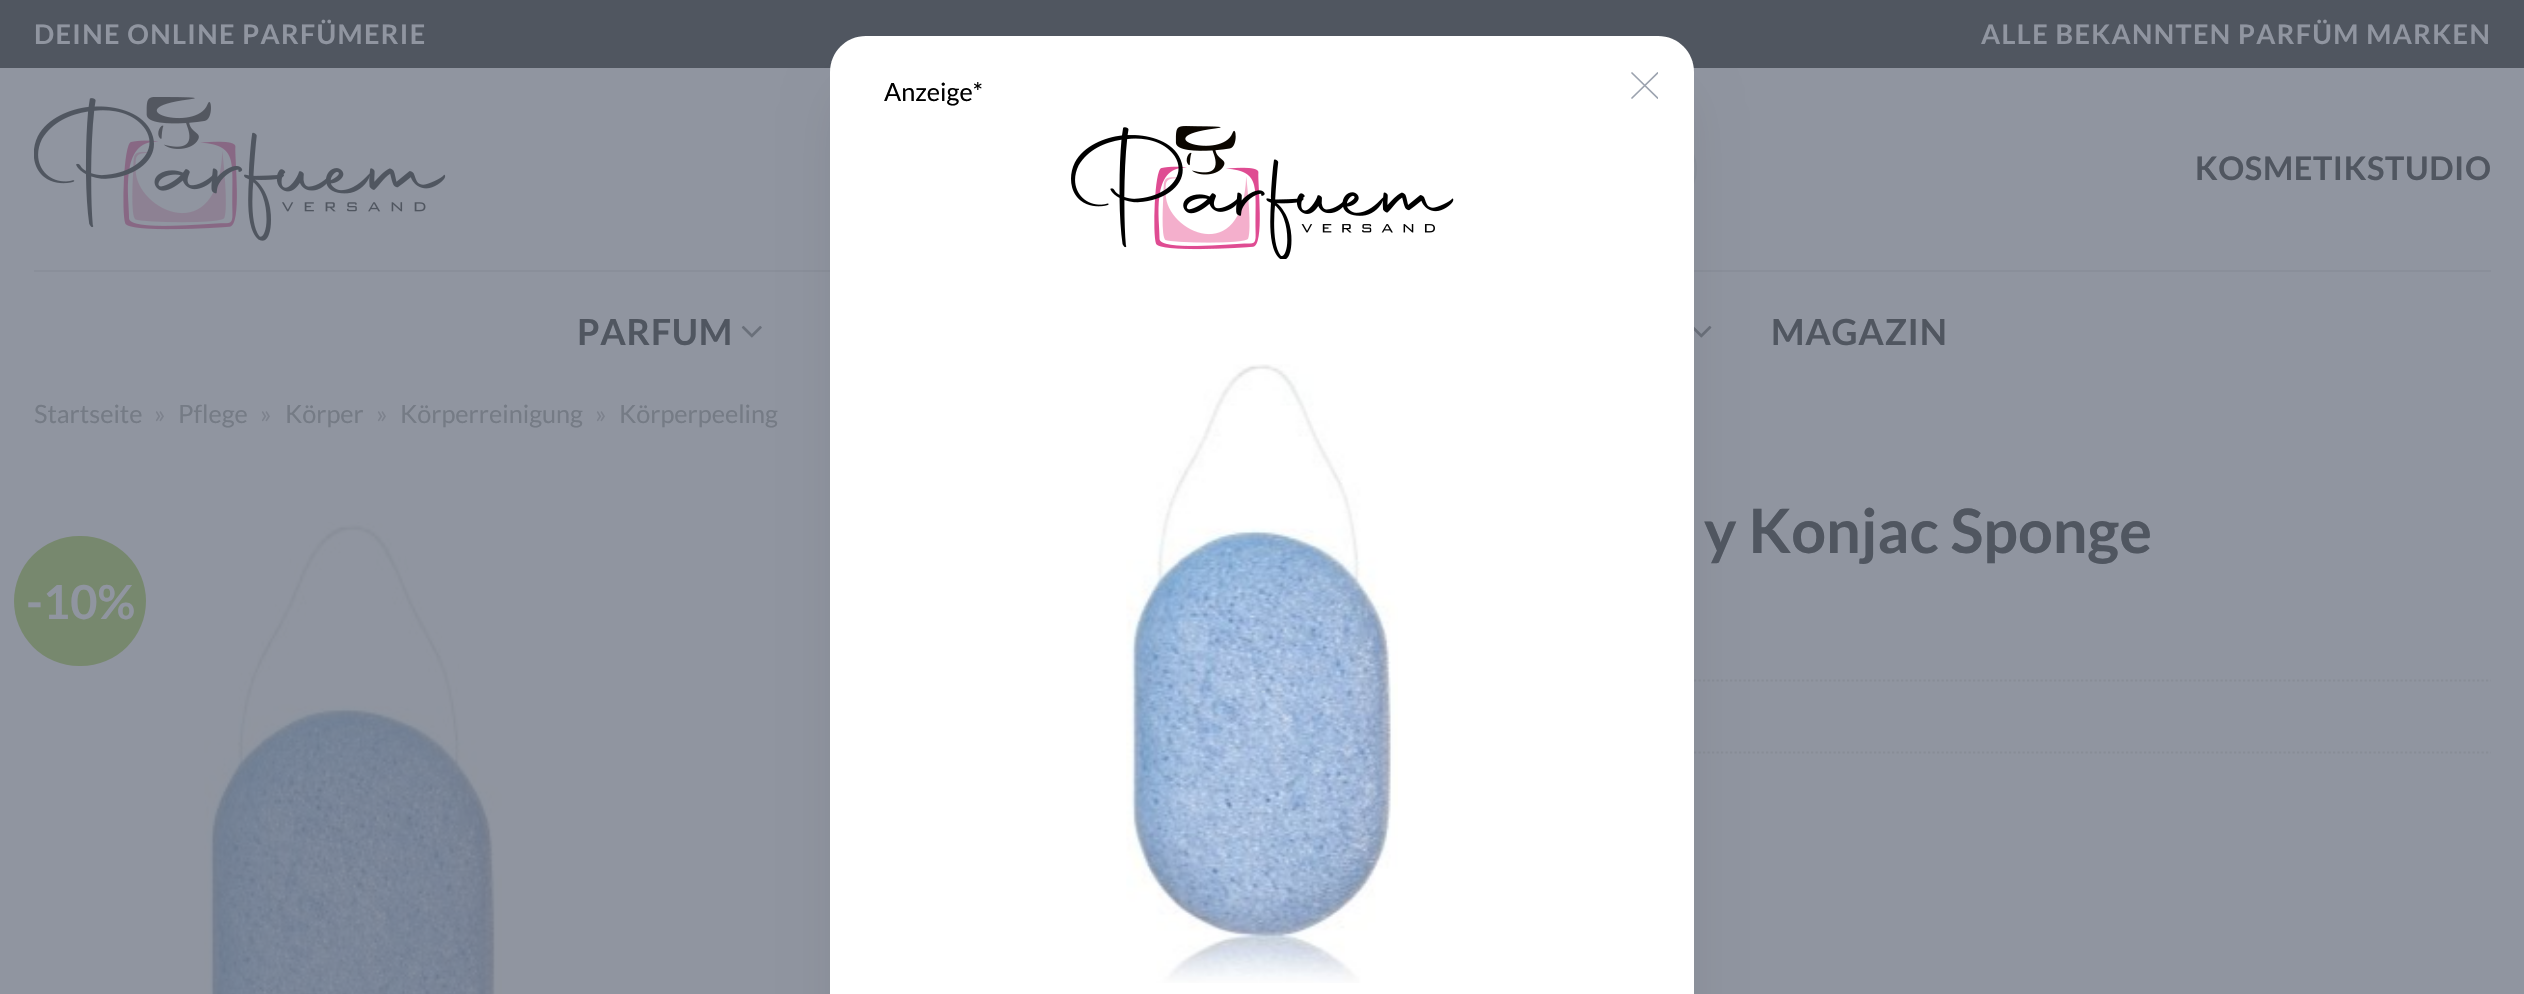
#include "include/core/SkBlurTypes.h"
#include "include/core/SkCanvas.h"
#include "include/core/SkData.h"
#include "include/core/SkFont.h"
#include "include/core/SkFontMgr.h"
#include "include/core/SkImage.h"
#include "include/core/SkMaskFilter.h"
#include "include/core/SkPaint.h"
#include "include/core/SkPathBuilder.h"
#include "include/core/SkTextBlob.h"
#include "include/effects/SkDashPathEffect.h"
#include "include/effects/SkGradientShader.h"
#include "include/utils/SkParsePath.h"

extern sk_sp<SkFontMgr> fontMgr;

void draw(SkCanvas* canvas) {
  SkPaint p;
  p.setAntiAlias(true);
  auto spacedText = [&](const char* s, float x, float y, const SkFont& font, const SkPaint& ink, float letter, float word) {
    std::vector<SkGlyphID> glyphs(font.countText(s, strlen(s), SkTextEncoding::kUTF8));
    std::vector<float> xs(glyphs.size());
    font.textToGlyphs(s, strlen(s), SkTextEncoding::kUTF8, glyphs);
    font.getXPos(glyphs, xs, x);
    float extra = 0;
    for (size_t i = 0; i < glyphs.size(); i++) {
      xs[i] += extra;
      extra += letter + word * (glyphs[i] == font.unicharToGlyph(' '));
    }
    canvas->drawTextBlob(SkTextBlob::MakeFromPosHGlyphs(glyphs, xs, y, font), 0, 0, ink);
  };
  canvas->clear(SkColorSetRGB(144, 149, 160));
  p.setColor(SkColorSetRGB(80, 86, 96));
  canvas->drawRect(SkRect::MakeLTRB(0, 0, 2524, 68), p);
  canvas->drawImageRect(SkImages::DeferredFromEncodedData(SkData::MakeFromFileName("images/1.png")), SkRect::MakeLTRB(34, 97, 446, 241), SkSamplingOptions());
  p.setStyle(SkPaint::kStroke_Style);
  p.setStrokeWidth(2);
  p.setColor(SkColorSetARGB(23, 80, 86, 96));
  canvas->drawRoundRect(SkRect::MakeLTRB(966, 132, 1696, 206), 37, 37, p);
  p.setStyle(SkPaint::kFill_Style);
  p.setColor(SkColorSetRGB(138, 143, 154));
  canvas->drawRect(SkRect::MakeLTRB(34, 270, 2491, 272), p);
  canvas->drawImageRect(SkImages::DeferredFromEncodedData(SkData::MakeFromFileName("images/2.png")), SkRect::MakeLTRB(741, 325, 762, 338), SkSamplingOptions());
  canvas->drawImageRect(SkImages::DeferredFromEncodedData(SkData::MakeFromFileName("images/3.png")), SkRect::MakeLTRB(1694, 325, 1712, 338), SkSamplingOptions());
  p.setStyle(SkPaint::kStroke_Style);
  p.setStrokeWidth(2.2f);
  p.setColor(SkColorSetRGB(136, 141, 151));
  p.setPathEffect(SkDashPathEffect::Make({{2.25f, 2.25f}}, 0));
  canvas->drawPath(SkPathBuilder().moveTo(875, 680.5f).lineTo(2491, 680.5f).detach(), p);
  p.setPathEffect(nullptr);
  p.setPathEffect(SkDashPathEffect::Make({{2.25f, 2.25f}}, 0));
  canvas->drawPath(SkPathBuilder().moveTo(875, 752.5f).lineTo(2491, 752.5f).detach(), p);
  p.setPathEffect(nullptr);
  p.setStyle(SkPaint::kFill_Style);
  p.setColor(SkColorSetRGB(119, 136, 110));
  canvas->drawRoundRect(SkRect::MakeLTRB(14, 536, 146, 666), 65, 65, p);
  canvas->drawImageRect(SkImages::DeferredFromEncodedData(SkData::MakeFromFileName("images/4.png")), SkRect::MakeLTRB(204, 522, 502, 994), SkSamplingOptions());
  p.setColor(SkColorSetARGB(26, 0, 0, 0));
  p.setMaskFilter(SkMaskFilter::MakeBlur(kNormal_SkBlurStyle, 28));
  canvas->drawRoundRect(SkRect::MakeLTRB(842, 92, 1683, 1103), 25, 25, p);
  p.setMaskFilter(nullptr);
  p.setColor(SK_ColorWHITE);
  canvas->drawPath(SkPathBuilder().moveTo(866, 36).lineTo(1658, 36).cubicTo(1678, 36, 1694, 52, 1694, 72).lineTo(1694, 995).lineTo(830, 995).lineTo(830, 72).cubicTo(830, 52, 846, 36, 866, 36).close().detach(), p);
  canvas->save();
  canvas->clipRect(SkRect::MakeLTRB(1631, 72, 1658, 99));
  p.setStyle(SkPaint::kStroke_Style);
  p.setStrokeWidth(1.7f);
  p.setStrokeCap(SkPaint::kRound_Cap);
  p.setStrokeJoin(SkPaint::kRound_Join);
  p.setColor(SkColorSetRGB(156, 163, 175));
  canvas->drawPath(SkPathBuilder().moveTo(1632, 98).lineTo(1657.5f, 73).moveTo(1632, 73).lineTo(1657.5f, 98).detach(), p);
  canvas->restore();
  canvas->drawImageRect(SkImages::DeferredFromEncodedData(SkData::MakeFromFileName("images/5.png")), SkRect::MakeLTRB(1071, 126, 1454, 259), SkSamplingOptions());
  canvas->drawImageRect(SkImages::DeferredFromEncodedData(SkData::MakeFromFileName("images/6.png")), SkRect::MakeLTRB(1126, 364, 1398, 983), SkSamplingOptions());
  SkFont font1(fontMgr->matchFamilyStyle("Lato", SkFontStyle::Bold()), 27);
  font1.setSubpixel(true);
  p.setStyle(SkPaint::kFill_Style);
  p.setColor(SkColorSetRGB(144, 149, 160));
  spacedText("DEINE ONLINE PARFÜMERIE", 34, 44, font1, p, 1.35f, 0);
  spacedText("ALLE BEKANNTEN PARFÜM MARKEN", 1981, 44, font1, p, 1.35f, 0);
  SkFont font2(fontMgr->matchFamilyStyle("Lato", SkFontStyle::Bold()), 32.5f);
  font2.setSubpixel(true);
  p.setColor(SkColorSetRGB(80, 86, 96));
  spacedText("KOSMETIKSTUDIO", 2195, 180, font2, p, 0.6f, 0);
  SkFont font3(fontMgr->matchFamilyStyle("Lato", SkFontStyle::Bold()), 36);
  font3.setSubpixel(true);
  spacedText("PARFUM", 577, 345, font3, p, 0.75f, 0);
  spacedText("MAGAZIN", 1771, 345, font3, p, 0.75f, 0);
  SkFont font4(fontMgr->matchFamilyStyle("Lato", SkFontStyle::Normal()), 25.25f);
  font4.setSubpixel(true);
  p.setColor(SkColorSetRGB(117, 123, 133));
  canvas->drawString("Startseite", 34, 423, font4, p);
  p.setColor(SkColorSetRGB(125, 130, 141));
  canvas->drawString("»", 154, 423, font4, p);
  p.setColor(SkColorSetRGB(117, 123, 133));
  canvas->drawString("Pflege", 178, 423, font4, p);
  p.setColor(SkColorSetRGB(125, 130, 141));
  canvas->drawString("»", 260, 423, font4, p);
  p.setColor(SkColorSetRGB(117, 123, 133));
  canvas->drawString("Körper", 285, 423, font4, p);
  p.setColor(SkColorSetRGB(125, 130, 141));
  canvas->drawString("»", 376, 423, font4, p);
  p.setColor(SkColorSetRGB(117, 123, 133));
  canvas->drawString("Körperreinigung", 400, 423, font4, p);
  p.setColor(SkColorSetRGB(125, 130, 141));
  canvas->drawString("»", 595, 423, font4, p);
  p.setColor(SkColorSetRGB(117, 123, 133));
  canvas->drawString("Körperpeeling", 619, 423, font4, p);
  SkFont font5(fontMgr->matchFamilyStyle("Lato", SkFontStyle::Bold()), 61.25f);
  font5.setSubpixel(true);
  p.setColor(SkColorSetRGB(80, 86, 96));
  canvas->drawString("y Konjac Sponge", 1704, 553, font5, p);
  SkFont font6(fontMgr->matchFamilyStyle("Lato", SkFontStyle::Bold()), 47);
  font6.setSubpixel(true);
  p.setColor(SkColorSetRGB(144, 149, 160));
  canvas->drawString("-10%", 26, 619, font6, p);
  p.setColor(SK_ColorBLACK);
  canvas->drawString("Anzeige*", 884, 101, font4, p);
}
